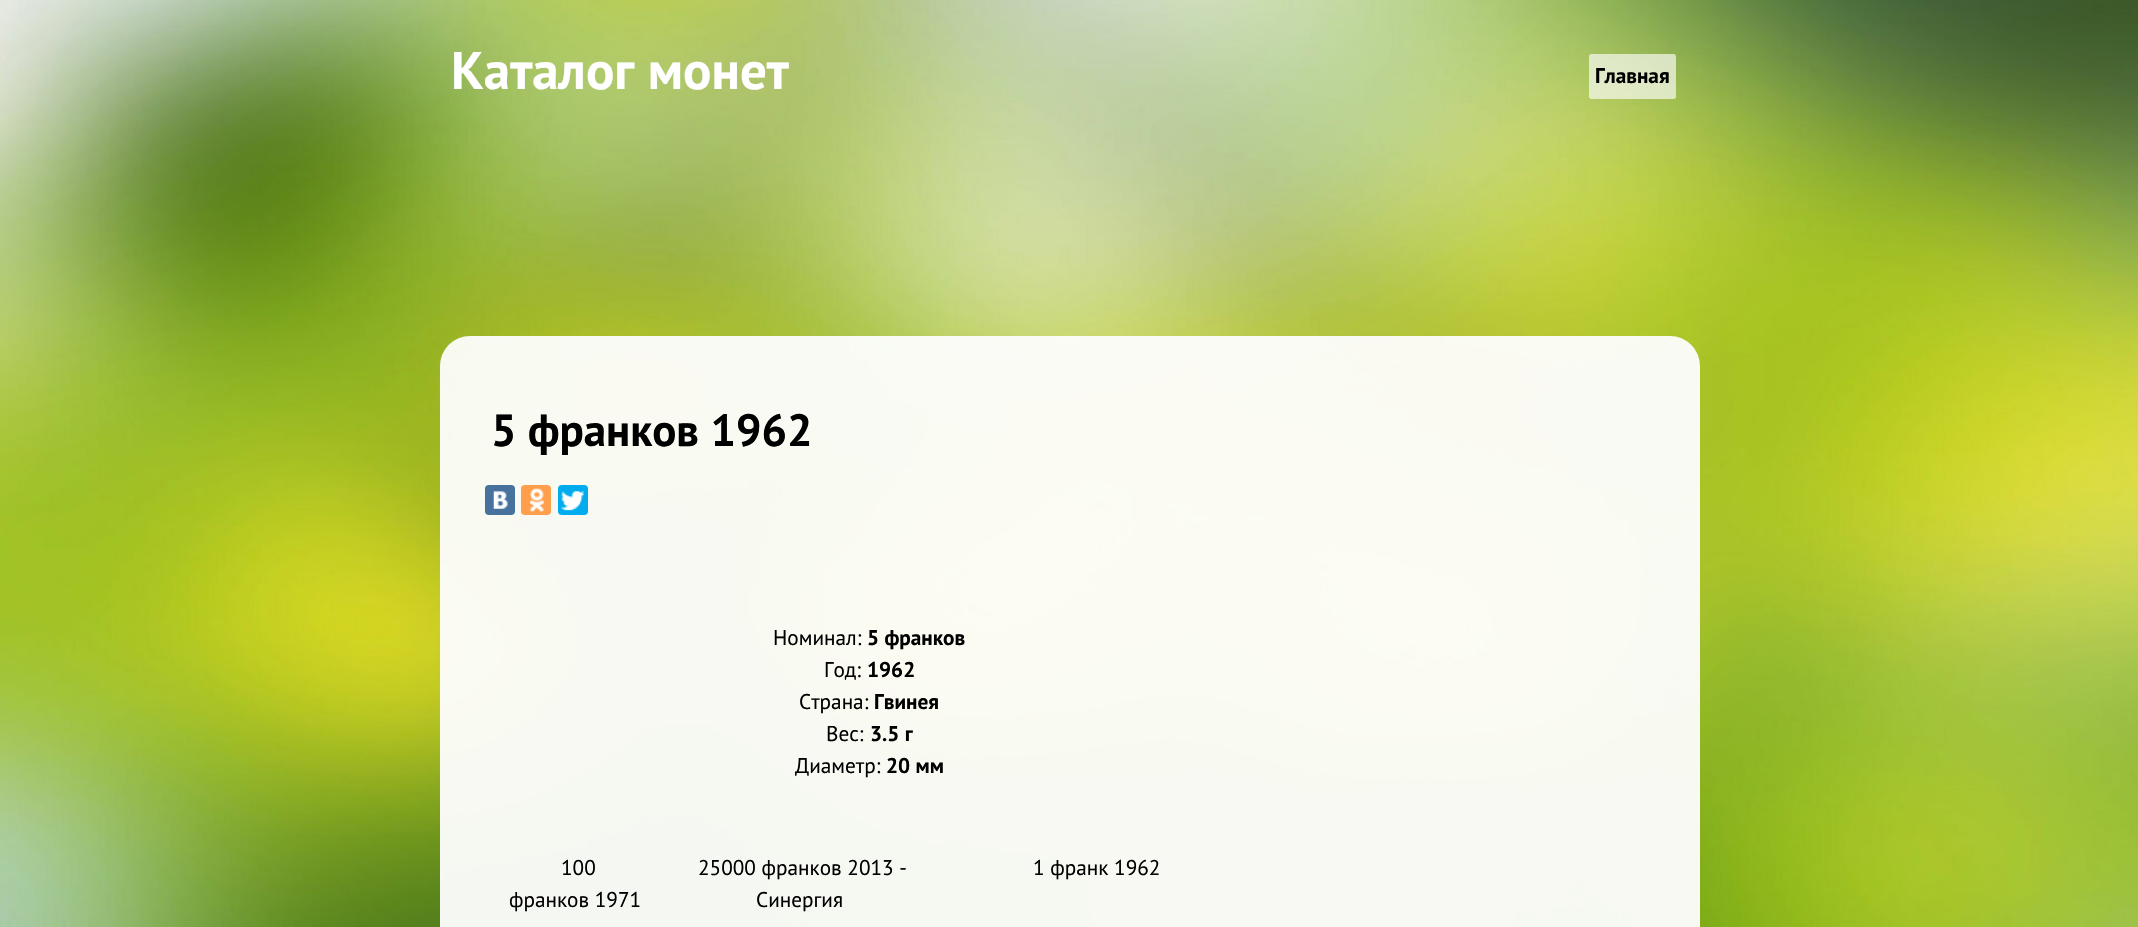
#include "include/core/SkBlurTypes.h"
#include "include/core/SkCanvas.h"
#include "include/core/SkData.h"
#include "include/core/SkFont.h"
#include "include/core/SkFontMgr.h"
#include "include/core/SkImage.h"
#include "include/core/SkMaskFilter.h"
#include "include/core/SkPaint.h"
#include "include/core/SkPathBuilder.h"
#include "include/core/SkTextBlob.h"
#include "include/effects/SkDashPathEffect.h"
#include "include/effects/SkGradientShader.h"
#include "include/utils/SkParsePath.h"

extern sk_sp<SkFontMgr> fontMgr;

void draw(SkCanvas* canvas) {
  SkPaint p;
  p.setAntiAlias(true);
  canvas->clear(SK_ColorWHITE);
  canvas->drawImageRect(SkImages::DeferredFromEncodedData(SkData::MakeFromFileName("images/1.png")), SkRect::MakeLTRB(0, 0, 2138, 927), SkSamplingOptions());
  p.setColor(SkColorSetARGB(166, 253, 253, 253));
  canvas->drawRoundRect(SkRect::MakeLTRB(1589, 54, 1676, 99), 2.5f, 2.5f, p);
  p.setColor(SkColorSetARGB(242, 253, 253, 253));
  canvas->drawRoundRect(SkRect::MakeLTRB(440, 336, 1700, 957), 30, 30, p);
  p.setColor(SkColorSetRGB(72, 114, 158));
  canvas->drawRoundRect(SkRect::MakeLTRB(485, 485, 515, 515), 4, 4, p);
  canvas->drawImageRect(SkImages::DeferredFromEncodedData(SkData::MakeFromFileName("images/2.png")), SkRect::MakeLTRB(493, 491, 508, 509), SkSamplingOptions());
  p.setColor(SkColorSetRGB(255, 159, 77));
  canvas->drawRoundRect(SkRect::MakeLTRB(521, 485, 551, 515), 4, 4, p);
  canvas->drawImageRect(SkImages::DeferredFromEncodedData(SkData::MakeFromFileName("images/3.png")), SkRect::MakeLTRB(529, 488, 544, 512), SkSamplingOptions());
  p.setColor(SkColorSetRGB(0, 172, 237));
  canvas->drawRoundRect(SkRect::MakeLTRB(558, 485, 588, 515), 4, 4, p);
  canvas->drawImageRect(SkImages::DeferredFromEncodedData(SkData::MakeFromFileName("images/4.png")), SkRect::MakeLTRB(561, 491, 584, 511), SkSamplingOptions());
  SkFont font1(fontMgr->matchFamilyStyle("PT Sans", SkFontStyle::Bold()), 53);
  font1.setSubpixel(true);
  p.setColor(SK_ColorWHITE);
  canvas->drawString("Каталог монет", 451, 89, font1, p);
  SkFont font2(fontMgr->matchFamilyStyle("PT Sans", SkFontStyle::Bold()), 21.25f);
  font2.setSubpixel(true);
  p.setColor(SK_ColorBLACK);
  canvas->drawString("Главная", 1595, 83, font2, p);
  SkFont font3(fontMgr->matchFamilyStyle("PT Sans", SkFontStyle::Bold()), 45);
  font3.setSubpixel(true);
  canvas->drawString("5 франков 1962", 491, 446, font3, p);
  SkFont font4(fontMgr->matchFamilyStyle("PT Sans", SkFontStyle::Normal()), 21.25f);
  font4.setSubpixel(true);
  canvas->drawString("Номинал:", 773, 645, font4, p);
  canvas->drawString("5 франков", 867, 645, font2, p);
  canvas->drawString("Год:", 824, 677, font4, p);
  canvas->drawString("1962", 867, 677, font2, p);
  canvas->drawString("Страна:", 799, 709, font4, p);
  canvas->drawString("Гвинея", 874, 709, font2, p);
  canvas->drawString("Вес:", 826, 741, font4, p);
  canvas->drawString("3.5 г", 870, 741, font2, p);
  canvas->drawString("Диаметр:", 795, 773, font4, p);
  canvas->drawString("20 мм", 886, 773, font2, p);
  canvas->drawString("100", 561, 875, font4, p);
  canvas->drawString("франков 1971", 509, 907, font4, p);
  canvas->drawString("25000 франков 2013 -", 698, 875, font4, p);
  canvas->drawString("Синергия", 756, 907, font4, p);
  canvas->drawString("1 франк 1962", 1033, 875, font4, p);
}
